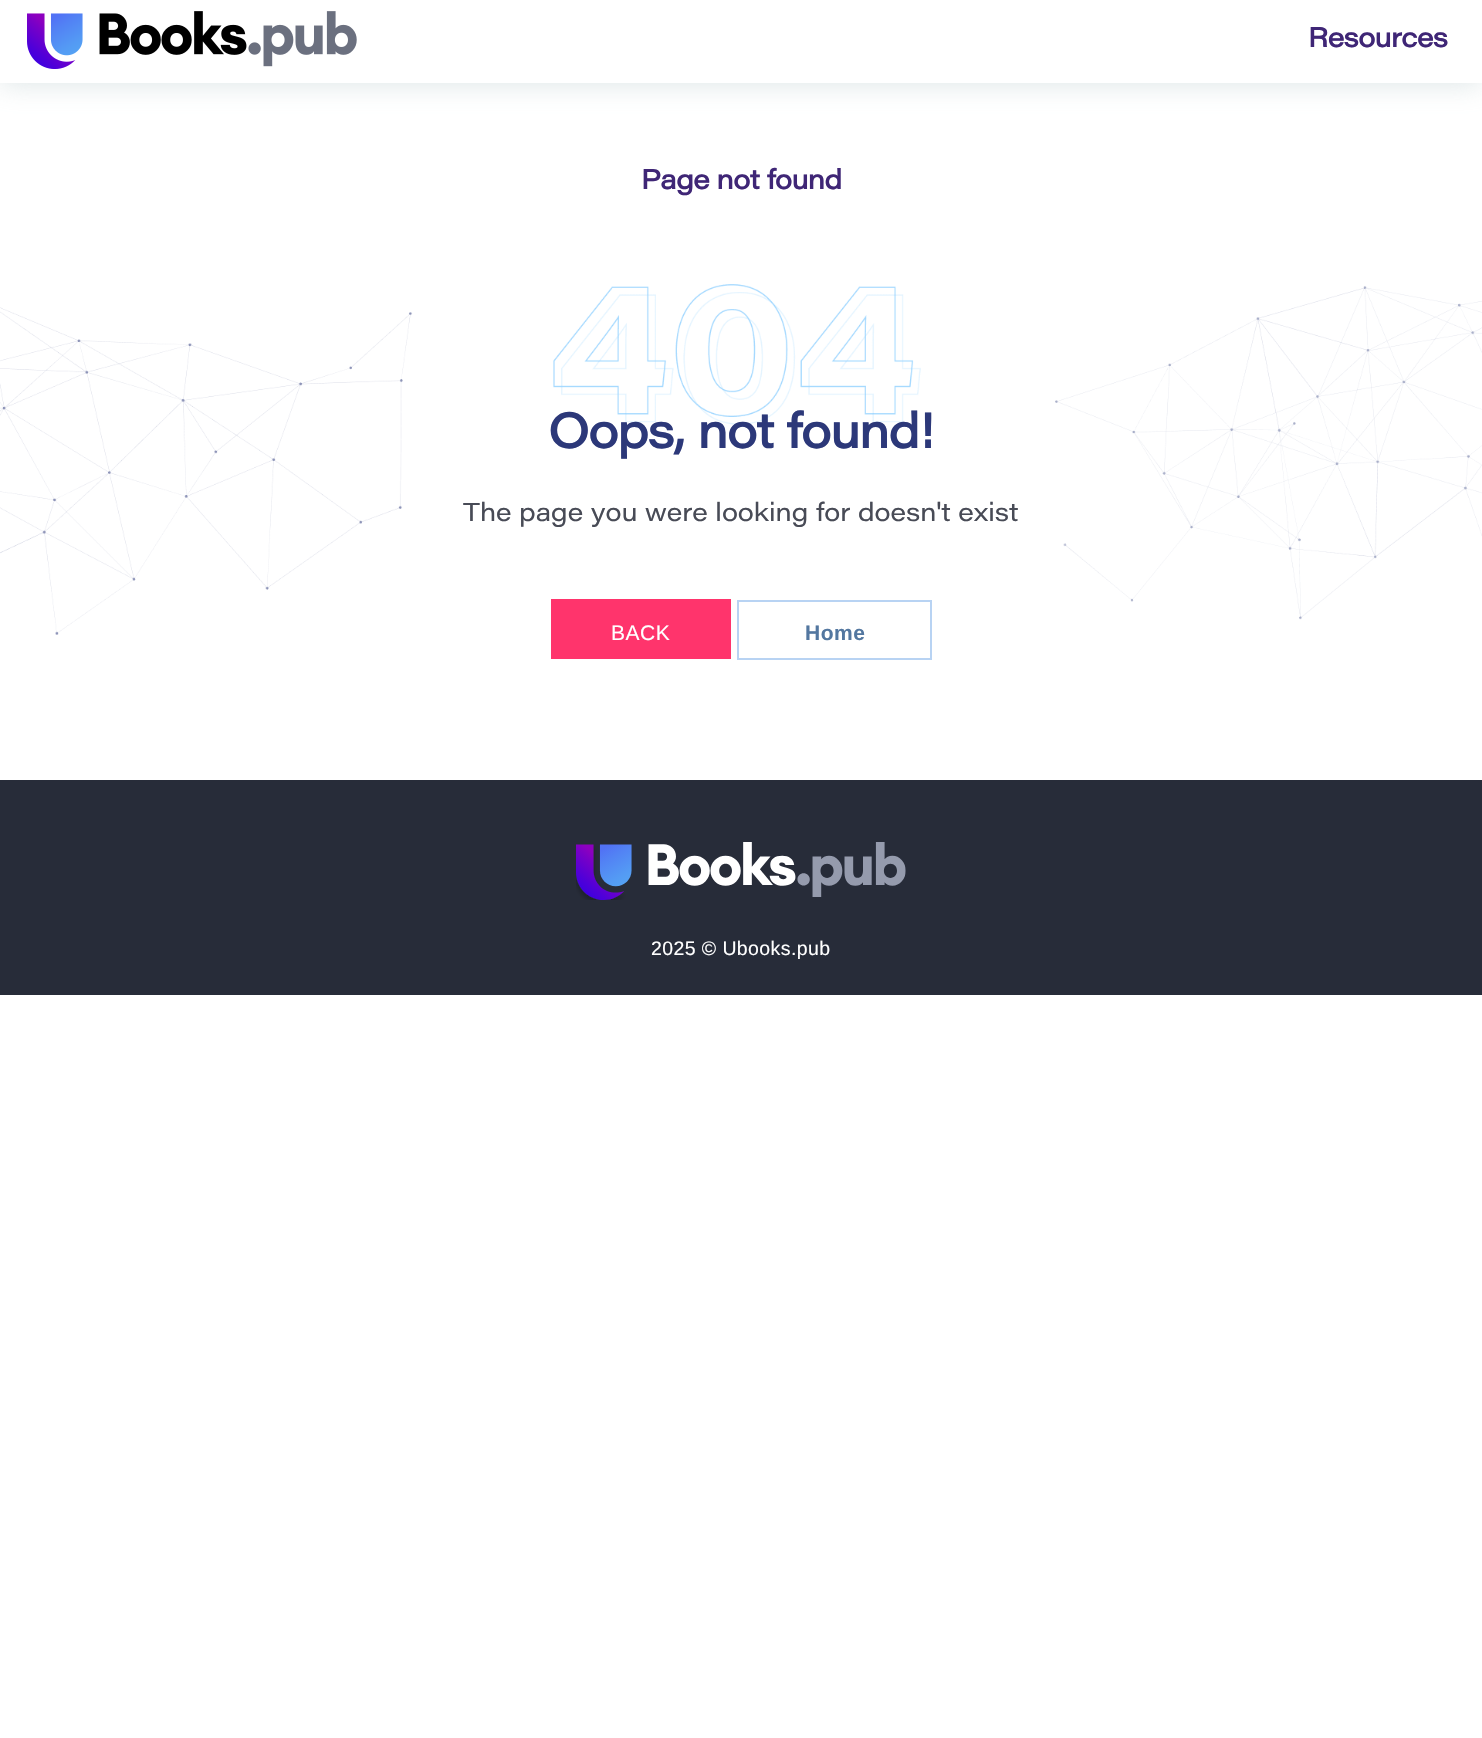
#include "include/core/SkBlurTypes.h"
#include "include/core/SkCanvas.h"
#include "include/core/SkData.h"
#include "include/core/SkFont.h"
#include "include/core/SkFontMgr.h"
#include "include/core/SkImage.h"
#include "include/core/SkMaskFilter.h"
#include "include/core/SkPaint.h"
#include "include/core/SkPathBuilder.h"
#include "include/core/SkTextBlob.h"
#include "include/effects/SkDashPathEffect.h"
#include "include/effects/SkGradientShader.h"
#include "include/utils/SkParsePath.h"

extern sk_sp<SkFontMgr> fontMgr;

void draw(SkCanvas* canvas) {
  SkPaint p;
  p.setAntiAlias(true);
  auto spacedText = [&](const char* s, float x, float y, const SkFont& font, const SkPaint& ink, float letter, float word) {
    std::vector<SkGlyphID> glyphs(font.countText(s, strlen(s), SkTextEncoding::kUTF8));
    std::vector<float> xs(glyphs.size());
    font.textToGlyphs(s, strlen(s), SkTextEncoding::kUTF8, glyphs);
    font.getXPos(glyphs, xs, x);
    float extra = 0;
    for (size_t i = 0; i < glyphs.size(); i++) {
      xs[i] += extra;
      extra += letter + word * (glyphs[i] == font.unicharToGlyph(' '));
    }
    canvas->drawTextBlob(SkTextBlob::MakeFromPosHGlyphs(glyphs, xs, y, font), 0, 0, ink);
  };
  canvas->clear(SK_ColorWHITE);
  p.setColor(SkColorSetARGB(115, 174, 193, 196));
  p.setMaskFilter(SkMaskFilter::MakeBlur(kNormal_SkBlurStyle, 13.5f));
  canvas->drawRect(SkRect::MakeLTRB(0, 0, 1482, 83), p);
  p.setMaskFilter(nullptr);
  p.setColor(SK_ColorWHITE);
  canvas->drawRect(SkRect::MakeLTRB(0, 0, 1482, 83), p);
  canvas->drawImageRect(SkImages::DeferredFromEncodedData(SkData::MakeFromFileName("images/1.png")), SkRect::MakeLTRB(27, 11, 357, 69), SkSamplingOptions());
  canvas->drawImageRect(SkImages::DeferredFromEncodedData(SkData::MakeFromFileName("images/2.png")), SkRect::MakeLTRB(0, 284, 1482, 635), SkSamplingOptions());
  p.setColor(SkColorSetRGB(255, 52, 108));
  canvas->drawRect(SkRect::MakeLTRB(551, 599, 731, 659), p);
  p.setStyle(SkPaint::kStroke_Style);
  p.setStrokeWidth(2);
  p.setColor(SkColorSetRGB(184, 211, 243));
  canvas->drawRect(SkRect::MakeLTRB(738, 601, 931, 659), p);
  p.setStyle(SkPaint::kFill_Style);
  p.setColor(SkColorSetRGB(39, 44, 57));
  canvas->drawRect(SkRect::MakeLTRB(0, 780, 1482, 995), p);
  canvas->drawImageRect(SkImages::DeferredFromEncodedData(SkData::MakeFromFileName("images/3.png")), SkRect::MakeLTRB(576, 842, 906, 900), SkSamplingOptions());
  SkFont font1(fontMgr->matchFamilyStyle("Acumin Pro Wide", SkFontStyle::Bold()), 27);
  font1.setSubpixel(true);
  p.setColor(SkColorSetRGB(63, 38, 118));
  spacedText("Resources", 1308, 47, font1, p, -0.5f, 0);
  spacedText("Page not found", 641, 189, font1, p, -0.5f, 0);
  SkFont font2(fontMgr->matchFamilyStyle("Acumin Pro Wide", SkFontStyle::Bold()), 48);
  font2.setSubpixel(true);
  p.setColor(SkColorSetRGB(44, 56, 121));
  spacedText("Oops, not found!", 548, 448, font2, p, -1, 0);
  SkFont font3(fontMgr->matchFamilyStyle("Acumin Pro Wide", SkFontStyle::Normal()), 25.5f);
  font3.setSubpixel(true);
  p.setColor(SkColorSetRGB(72, 75, 86));
  canvas->drawString("The page you were looking for doesn't exist", 463, 521, font3, p);
  SkFont font4(fontMgr->matchFamilyStyle("Liberation Sans", SkFontStyle::Normal()), 21);
  font4.setSubpixel(true);
  p.setColor(SK_ColorWHITE);
  spacedText("BACK", 611, 640, font4, p, 0.5f, 0);
  SkFont font5(fontMgr->matchFamilyStyle("Liberation Sans", SkFontStyle::Bold()), 21);
  font5.setSubpixel(true);
  p.setColor(SkColorSetRGB(83, 119, 160));
  spacedText("Home", 805, 640, font5, p, 0.5f, 0);
  SkFont font6(fontMgr->matchFamilyStyle("Liberation Sans", SkFontStyle::Normal()), 19.5f);
  font6.setSubpixel(true);
  p.setColor(SK_ColorWHITE);
  spacedText("2025 © Ubooks.pub", 651, 955, font6, p, 0.4f, 0);
}
